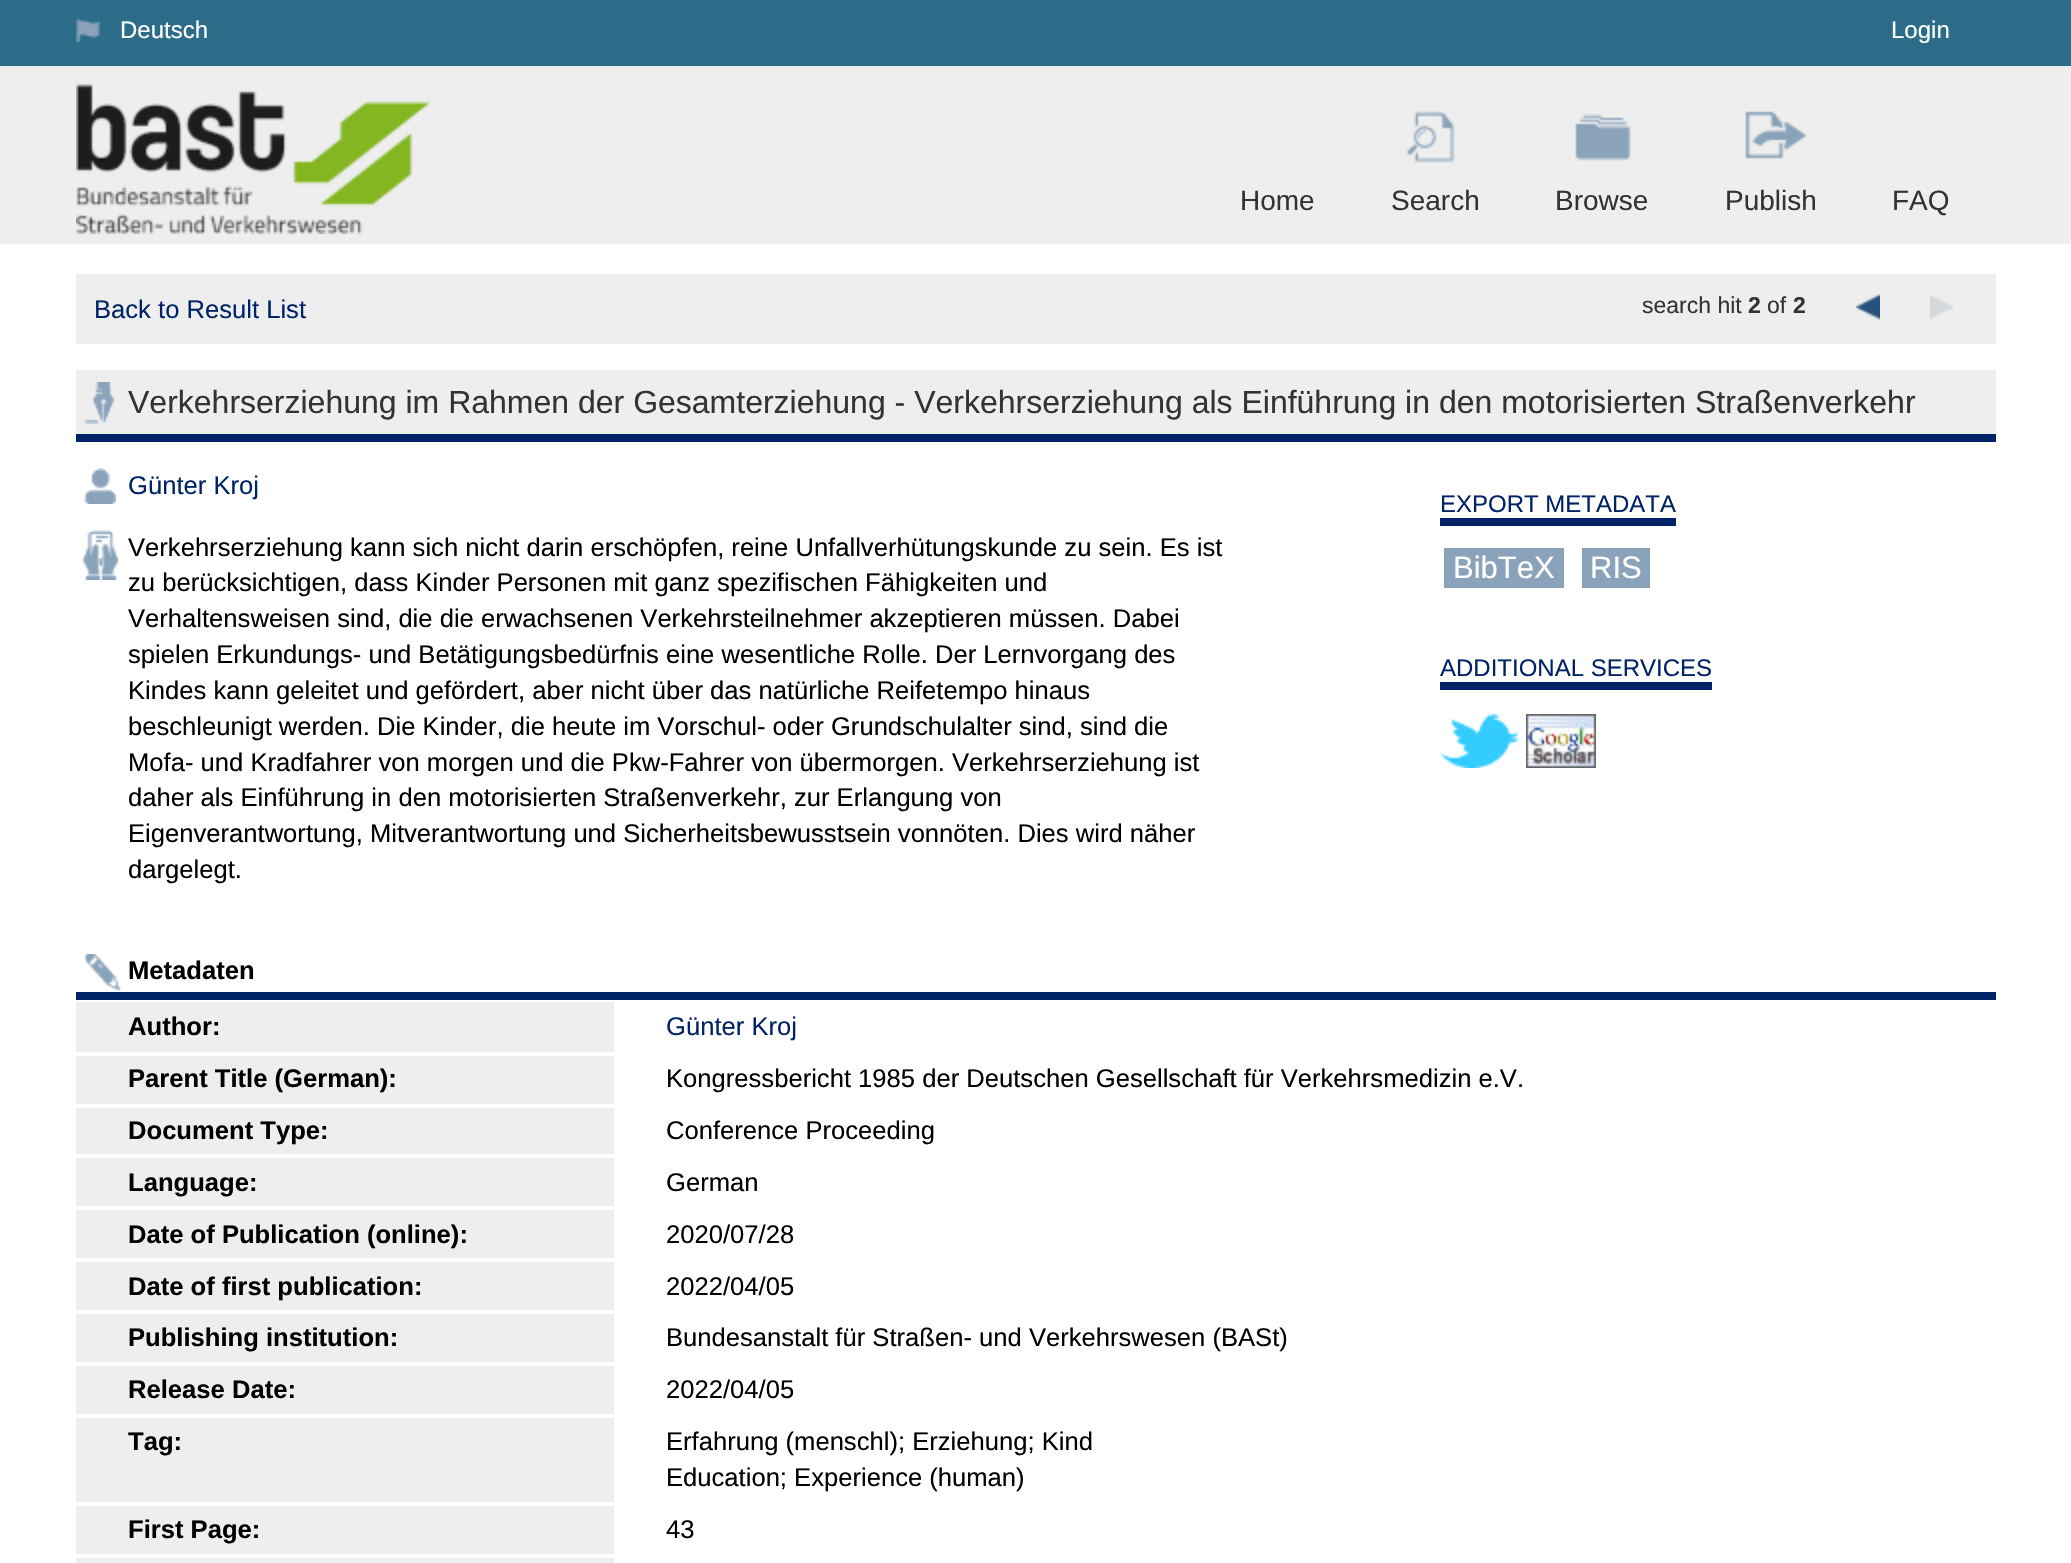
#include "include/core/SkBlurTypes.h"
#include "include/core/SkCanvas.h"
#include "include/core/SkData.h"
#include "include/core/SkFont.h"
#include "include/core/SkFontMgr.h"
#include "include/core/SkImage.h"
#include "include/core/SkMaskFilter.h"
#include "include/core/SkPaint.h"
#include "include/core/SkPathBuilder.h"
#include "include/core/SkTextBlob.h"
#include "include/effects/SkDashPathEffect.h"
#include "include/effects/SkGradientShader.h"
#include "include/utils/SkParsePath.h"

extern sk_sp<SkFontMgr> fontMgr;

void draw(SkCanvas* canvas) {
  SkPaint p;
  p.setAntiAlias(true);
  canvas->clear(SK_ColorWHITE);
  p.setColor(SkColorSetRGB(44, 108, 136));
  canvas->drawRect(SkRect::MakeLTRB(0, 0, 2071, 66), p);
  canvas->drawImageRect(SkImages::DeferredFromEncodedData(SkData::MakeFromFileName("images/1.png")), SkRect::MakeLTRB(76, 18, 100, 43), SkSamplingOptions());
  p.setColor(SkColorSetRGB(238, 238, 238));
  canvas->drawRect(SkRect::MakeLTRB(0, 66, 2071, 244), p);
  canvas->drawImageRect(SkImages::DeferredFromEncodedData(SkData::MakeFromFileName("images/2.png")), SkRect::MakeLTRB(76, 84, 430, 234), SkSamplingOptions());
  canvas->drawImageRect(SkImages::DeferredFromEncodedData(SkData::MakeFromFileName("images/3.png")), SkRect::MakeLTRB(1406, 111, 1455, 163), SkSamplingOptions());
  canvas->drawImageRect(SkImages::DeferredFromEncodedData(SkData::MakeFromFileName("images/4.png")), SkRect::MakeLTRB(1575, 113, 1631, 161), SkSamplingOptions());
  canvas->drawImageRect(SkImages::DeferredFromEncodedData(SkData::MakeFromFileName("images/5.png")), SkRect::MakeLTRB(1745, 111, 1807, 159), SkSamplingOptions());
  canvas->drawRect(SkRect::MakeLTRB(76, 274, 1996, 344), p);
  canvas->drawImageRect(SkImages::DeferredFromEncodedData(SkData::MakeFromFileName("images/6.png")), SkRect::MakeLTRB(1856, 294, 1880, 320), SkSamplingOptions());
  canvas->drawImageRect(SkImages::DeferredFromEncodedData(SkData::MakeFromFileName("images/7.png")), SkRect::MakeLTRB(1930, 294, 1954, 320), SkSamplingOptions());
  canvas->drawRect(SkRect::MakeLTRB(76, 370, 1996, 434), p);
  canvas->drawImageRect(SkImages::DeferredFromEncodedData(SkData::MakeFromFileName("images/8.png")), SkRect::MakeLTRB(84, 382, 114, 424), SkSamplingOptions());
  p.setColor(SkColorSetRGB(0, 34, 102));
  canvas->drawRect(SkRect::MakeLTRB(76, 434, 1996, 442), p);
  canvas->drawImageRect(SkImages::DeferredFromEncodedData(SkData::MakeFromFileName("images/9.png")), SkRect::MakeLTRB(84, 468, 116, 504), SkSamplingOptions());
  canvas->drawImageRect(SkImages::DeferredFromEncodedData(SkData::MakeFromFileName("images/10.png")), SkRect::MakeLTRB(82, 530, 118, 580), SkSamplingOptions());
  canvas->drawRect(SkRect::MakeLTRB(1440, 518, 1676, 526), p);
  p.setColor(SkColorSetRGB(138, 163, 187));
  canvas->drawRect(SkRect::MakeLTRB(1444, 548, 1564, 588), p);
  canvas->drawRect(SkRect::MakeLTRB(1582, 548, 1650, 588), p);
  p.setColor(SkColorSetRGB(0, 34, 102));
  canvas->drawRect(SkRect::MakeLTRB(1440, 682, 1712, 690), p);
  canvas->drawImageRect(SkImages::DeferredFromEncodedData(SkData::MakeFromFileName("images/11.png")), SkRect::MakeLTRB(1440, 714, 1518, 768), SkSamplingOptions());
  canvas->drawImageRect(SkImages::DeferredFromEncodedData(SkData::MakeFromFileName("images/12.png")), SkRect::MakeLTRB(1526, 714, 1596, 768), SkSamplingOptions());
  canvas->drawImageRect(SkImages::DeferredFromEncodedData(SkData::MakeFromFileName("images/13.png")), SkRect::MakeLTRB(84, 954, 121, 991), SkSamplingOptions());
  canvas->drawRect(SkRect::MakeLTRB(76, 992, 1996, 1000), p);
  p.setColor(SkColorSetRGB(238, 238, 238));
  canvas->drawRect(SkRect::MakeLTRB(76, 1002, 614, 1052), p);
  canvas->drawRect(SkRect::MakeLTRB(76, 1056, 614, 1104), p);
  canvas->drawRect(SkRect::MakeLTRB(76, 1108, 614, 1154), p);
  canvas->drawRect(SkRect::MakeLTRB(76, 1158, 614, 1206), p);
  canvas->drawRect(SkRect::MakeLTRB(76, 1210, 614, 1258), p);
  canvas->drawRect(SkRect::MakeLTRB(76, 1262, 614, 1310), p);
  canvas->drawRect(SkRect::MakeLTRB(76, 1314, 614, 1362), p);
  canvas->drawRect(SkRect::MakeLTRB(76, 1366, 614, 1414), p);
  canvas->drawRect(SkRect::MakeLTRB(76, 1418, 614, 1502), p);
  canvas->drawRect(SkRect::MakeLTRB(76, 1506, 614, 1554), p);
  canvas->drawRect(SkRect::MakeLTRB(76, 1558, 614, 1563), p);
  SkFont font1(fontMgr->matchFamilyStyle("Liberation Sans", SkFontStyle::Normal()), 24);
  font1.setSubpixel(true);
  p.setColor(SK_ColorWHITE);
  canvas->drawString("Deutsch", 120, 38, font1, p);
  canvas->drawString("Login", 1891, 38, font1, p);
  SkFont font2(fontMgr->matchFamilyStyle("Liberation Sans", SkFontStyle::Normal()), 28);
  font2.setSubpixel(true);
  p.setColor(SkColorSetRGB(51, 51, 51));
  canvas->drawString("Home", 1240, 210, font2, p);
  canvas->drawString("Search", 1391, 210, font2, p);
  canvas->drawString("Browse", 1555, 210, font2, p);
  canvas->drawString("Publish", 1725, 210, font2, p);
  canvas->drawString("FAQ", 1892, 210, font2, p);
  SkFont font3(fontMgr->matchFamilyStyle("Liberation Sans", SkFontStyle::Normal()), 25.6f);
  font3.setSubpixel(true);
  p.setColor(SkColorSetRGB(0, 34, 102));
  canvas->drawString("Back to Result List", 94, 318, font3, p);
  SkFont font4(fontMgr->matchFamilyStyle("Liberation Sans", SkFontStyle::Normal()), 23);
  font4.setSubpixel(true);
  p.setColor(SkColorSetRGB(51, 51, 51));
  canvas->drawString("search hit", 1642, 313, font4, p);
  SkFont font5(fontMgr->matchFamilyStyle("Liberation Sans", SkFontStyle::Bold()), 23);
  font5.setSubpixel(true);
  canvas->drawString("2", 1748, 313, font5, p);
  canvas->drawString("of", 1767, 313, font4, p);
  canvas->drawString("2", 1793, 313, font5, p);
  SkFont font6(fontMgr->matchFamilyStyle("Liberation Sans", SkFontStyle::Normal()), 32);
  font6.setSubpixel(true);
  canvas->drawString("Verkehrserziehung im Rahmen der Gesamterziehung - Verkehrserziehung als Einführung in den motorisierten Straßenverkehr", 128, 413, font6, p);
  p.setColor(SkColorSetRGB(0, 34, 102));
  canvas->drawString("Günter Kroj", 128, 494, font3, p);
  p.setColor(SK_ColorBLACK);
  canvas->drawString("Verkehrserziehung kann sich nicht darin erschöpfen, reine Unfallverhütungskunde zu sein. Es ist", 128, 556, font3, p);
  canvas->drawString("zu berücksichtigen, dass Kinder Personen mit ganz spezifischen Fähigkeiten und", 128, 591, font3, p);
  canvas->drawString("Verhaltensweisen sind, die die erwachsenen Verkehrsteilnehmer akzeptieren müssen. Dabei", 128, 627, font3, p);
  canvas->drawString("spielen Erkundungs- und Betätigungsbedürfnis eine wesentliche Rolle. Der Lernvorgang des", 128, 663, font3, p);
  canvas->drawString("Kindes kann geleitet und gefördert, aber nicht über das natürliche Reifetempo hinaus", 128, 699, font3, p);
  canvas->drawString("beschleunigt werden. Die Kinder, die heute im Vorschul- oder Grundschulalter sind, sind die", 128, 735, font3, p);
  canvas->drawString("Mofa- und Kradfahrer von morgen und die Pkw-Fahrer von übermorgen. Verkehrserziehung ist", 128, 771, font3, p);
  canvas->drawString("daher als Einführung in den motorisierten Straßenverkehr, zur Erlangung von", 128, 806, font3, p);
  canvas->drawString("Eigenverantwortung, Mitverantwortung und Sicherheitsbewusstsein vonnöten. Dies wird näher", 128, 842, font3, p);
  canvas->drawString("dargelegt.", 128, 878, font3, p);
  p.setColor(SkColorSetRGB(0, 34, 102));
  canvas->drawString("EXPORT METADATA", 1440, 512, font1, p);
  SkFont font7(fontMgr->matchFamilyStyle("Liberation Sans", SkFontStyle::Normal()), 31);
  font7.setSubpixel(true);
  p.setColor(SK_ColorWHITE);
  canvas->drawString("BibTeX", 1453, 578, font7, p);
  canvas->drawString("RIS", 1590, 578, font7, p);
  p.setColor(SkColorSetRGB(0, 34, 102));
  canvas->drawString("ADDITIONAL SERVICES", 1440, 676, font1, p);
  SkFont font8(fontMgr->matchFamilyStyle("Liberation Sans", SkFontStyle::Bold()), 25.6f);
  font8.setSubpixel(true);
  p.setColor(SK_ColorBLACK);
  canvas->drawString("Metadaten", 128, 979, font8, p);
  canvas->drawString("Author:", 128, 1035, font8, p);
  p.setColor(SkColorSetRGB(0, 34, 102));
  canvas->drawString("Günter Kroj", 666, 1035, font3, p);
  p.setColor(SK_ColorBLACK);
  canvas->drawString("Parent Title (German):", 128, 1087, font8, p);
  canvas->drawString("Kongressbericht 1985 der Deutschen Gesellschaft für Verkehrsmedizin e.V.", 666, 1087, font3, p);
  canvas->drawString("Document Type:", 128, 1139, font8, p);
  canvas->drawString("Conference Proceeding", 666, 1139, font3, p);
  canvas->drawString("Language:", 128, 1191, font8, p);
  canvas->drawString("German", 666, 1191, font3, p);
  canvas->drawString("Date of Publication (online):", 128, 1243, font8, p);
  canvas->drawString("2020/07/28", 666, 1243, font3, p);
  canvas->drawString("Date of first publication:", 128, 1295, font8, p);
  canvas->drawString("2022/04/05", 666, 1295, font3, p);
  canvas->drawString("Publishing institution:", 128, 1346, font8, p);
  canvas->drawString("Bundesanstalt für Straßen- und Verkehrswesen (BASt)", 666, 1346, font3, p);
  canvas->drawString("Release Date:", 128, 1398, font8, p);
  canvas->drawString("2022/04/05", 666, 1398, font3, p);
  canvas->drawString("Tag:", 128, 1450, font8, p);
  canvas->drawString("Erfahrung (menschl); Erziehung; Kind", 666, 1450, font3, p);
  canvas->drawString("Education; Experience (human)", 666, 1486, font3, p);
  canvas->drawString("First Page:", 128, 1538, font8, p);
  canvas->drawString("43", 666, 1538, font3, p);
}
